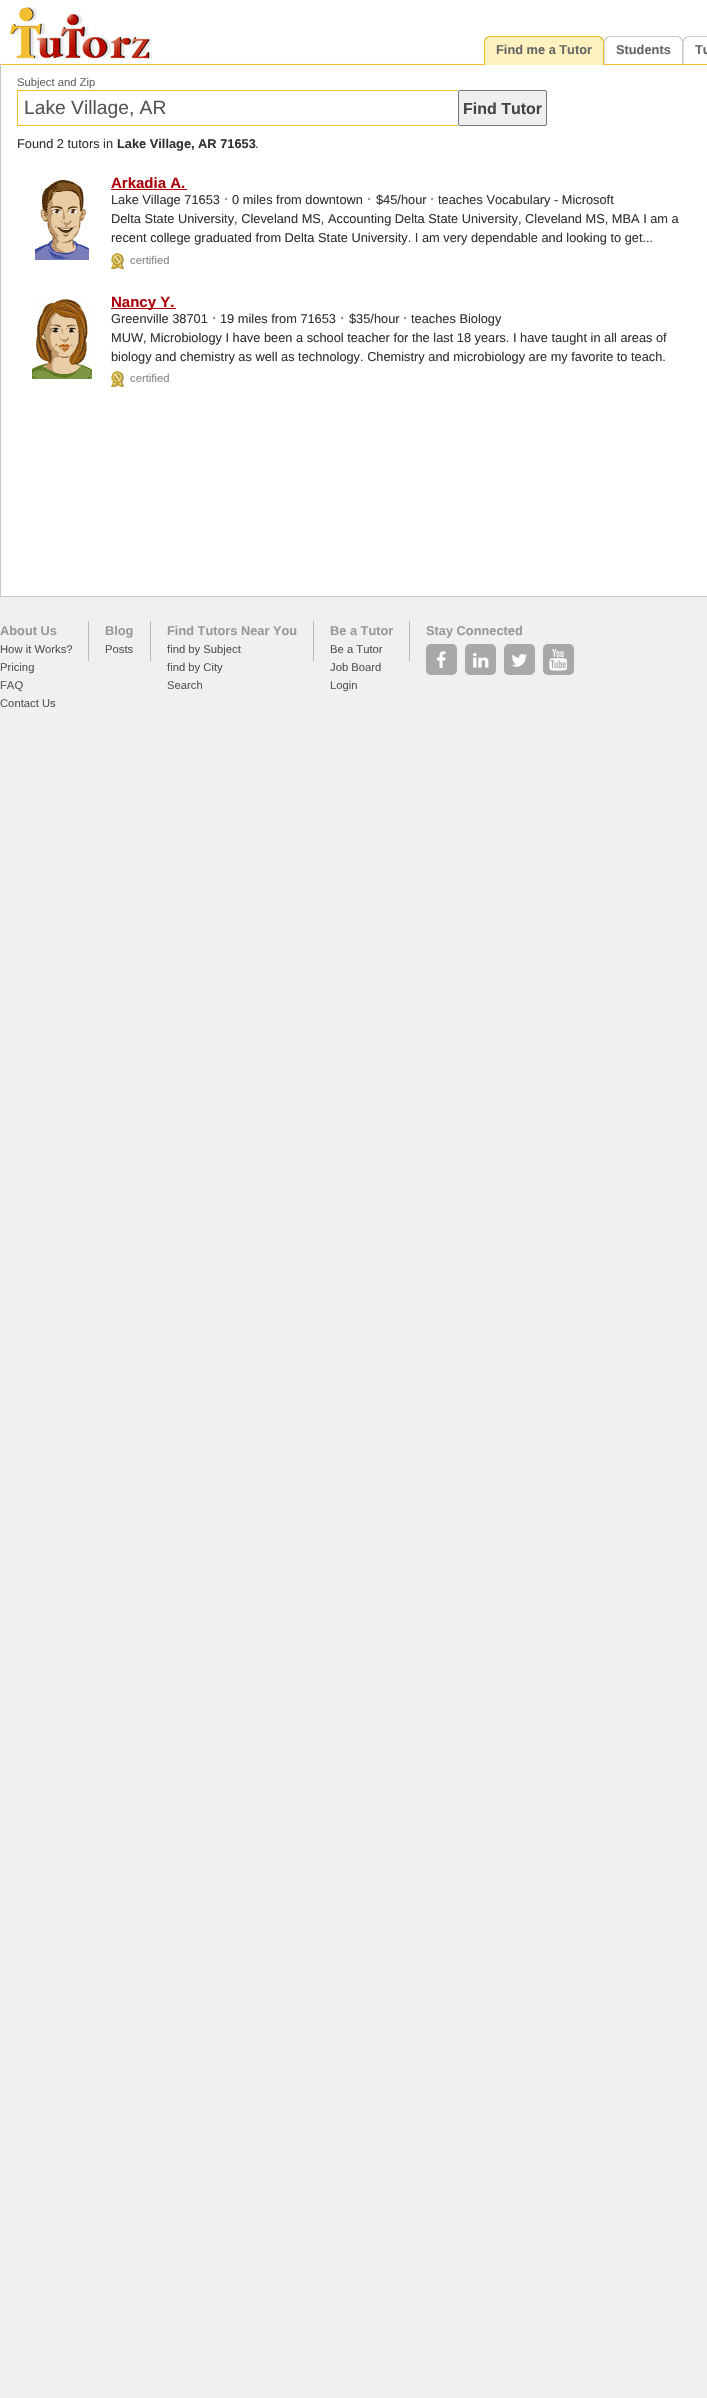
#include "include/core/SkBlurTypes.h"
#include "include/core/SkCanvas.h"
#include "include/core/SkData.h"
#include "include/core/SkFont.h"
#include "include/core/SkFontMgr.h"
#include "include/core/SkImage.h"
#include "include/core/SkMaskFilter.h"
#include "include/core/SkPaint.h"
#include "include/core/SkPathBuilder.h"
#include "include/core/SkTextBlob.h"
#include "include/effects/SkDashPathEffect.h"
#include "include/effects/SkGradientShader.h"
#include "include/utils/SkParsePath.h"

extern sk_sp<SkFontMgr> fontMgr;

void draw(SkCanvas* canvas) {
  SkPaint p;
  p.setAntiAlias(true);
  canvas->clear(SkColorSetRGB(240, 240, 240));
  canvas->drawImageRect(SkImages::DeferredFromEncodedData(SkData::MakeFromFileName("images/1.png")), SkRect::MakeLTRB(0, 0, 707, 64), SkSamplingOptions());
  canvas->drawImageRect(SkImages::DeferredFromEncodedData(SkData::MakeFromFileName("images/2.png")), SkRect::MakeLTRB(10, 7, 152, 59), SkSamplingOptions());
  p.setColor(SkColorSetRGB(242, 189, 47));
  canvas->drawRect(SkRect::MakeLTRB(0, 64, 707, 65), p);
  canvas->drawImageRect(SkImages::DeferredFromEncodedData(SkData::MakeFromFileName("images/3.png")), SkRect::MakeLTRB(484, 36, 488, 65), SkSamplingOptions());
  canvas->drawImageRect(SkImages::DeferredFromEncodedData(SkData::MakeFromFileName("images/4.png")), SkRect::MakeLTRB(488, 36, 604, 65), SkSamplingOptions());
  canvas->drawImageRect(SkImages::DeferredFromEncodedData(SkData::MakeFromFileName("images/5.png")), SkRect::MakeLTRB(604, 36, 608, 64), SkSamplingOptions());
  canvas->drawImageRect(SkImages::DeferredFromEncodedData(SkData::MakeFromFileName("images/6.png")), SkRect::MakeLTRB(608, 36, 683, 64), SkSamplingOptions());
  canvas->drawImageRect(SkImages::DeferredFromEncodedData(SkData::MakeFromFileName("images/7.png")), SkRect::MakeLTRB(683, 36, 688, 64), SkSamplingOptions());
  canvas->drawImageRect(SkImages::DeferredFromEncodedData(SkData::MakeFromFileName("images/8.png")), SkRect::MakeLTRB(687, 36, 707, 38), SkSamplingOptions());
  p.setColor(SK_ColorWHITE);
  canvas->drawRect(SkRect::MakeLTRB(1, 65, 707, 596), p);
  p.setColor(SkColorSetRGB(199, 199, 199));
  canvas->drawRect(SkRect::MakeLTRB(0, 596, 707, 597), p);
  canvas->drawRect(SkRect::MakeLTRB(0, 64, 1, 597), p);
  p.setColor(SkColorSetRGB(242, 189, 47));
  canvas->drawRect(SkRect::MakeLTRB(17, 90, 458, 91), p);
  canvas->drawRect(SkRect::MakeLTRB(17, 125, 458, 126), p);
  canvas->drawRect(SkRect::MakeLTRB(17, 90, 18, 126), p);
  p.setColor(SkColorSetRGB(239, 239, 239));
  canvas->drawRoundRect(SkRect::MakeLTRB(458.5f, 90.5f, 546.5f, 125.5f), 1.5f, 1.5f, p);
  p.setStyle(SkPaint::kStroke_Style);
  p.setStrokeWidth(1);
  p.setColor(SkColorSetRGB(118, 118, 118));
  canvas->drawRoundRect(SkRect::MakeLTRB(458.5f, 90.5f, 546.5f, 125.5f), 1.5f, 1.5f, p);
  canvas->drawImageRect(SkImages::DeferredFromEncodedData(SkData::MakeFromFileName("images/9.png")), SkRect::MakeLTRB(35, 180, 89, 260), SkSamplingOptions());
  p.setStyle(SkPaint::kFill_Style);
  p.setColor(SkColorSetRGB(171, 0, 11));
  canvas->drawRect(SkRect::MakeLTRB(111, 189, 187, 190), p);
  canvas->drawImageRect(SkImages::DeferredFromEncodedData(SkData::MakeFromFileName("images/10.png")), SkRect::MakeLTRB(111, 253, 124, 269), SkSamplingOptions());
  canvas->drawImageRect(SkImages::DeferredFromEncodedData(SkData::MakeFromFileName("images/11.png")), SkRect::MakeLTRB(32, 299, 92, 379), SkSamplingOptions());
  canvas->drawRect(SkRect::MakeLTRB(111, 308, 176, 309), p);
  canvas->drawImageRect(SkImages::DeferredFromEncodedData(SkData::MakeFromFileName("images/10.png")), SkRect::MakeLTRB(111, 371, 124, 387), SkSamplingOptions());
  p.setColor(SkColorSetRGB(187, 187, 187));
  canvas->drawRect(SkRect::MakeLTRB(88, 621, 89, 661), p);
  canvas->drawRect(SkRect::MakeLTRB(150, 621, 151, 661), p);
  canvas->drawRect(SkRect::MakeLTRB(313, 621, 314, 661), p);
  canvas->drawRect(SkRect::MakeLTRB(409, 621, 410, 661), p);
  p.setColor(SkColorSetRGB(168, 168, 168));
  canvas->drawRoundRect(SkRect::MakeLTRB(426, 644, 457, 675), 5, 5, p);
  canvas->drawImageRect(SkImages::DeferredFromEncodedData(SkData::MakeFromFileName("images/12.png")), SkRect::MakeLTRB(436, 651, 446, 668), SkSamplingOptions());
  canvas->drawRoundRect(SkRect::MakeLTRB(465, 644, 496, 675), 5, 5, p);
  canvas->drawImageRect(SkImages::DeferredFromEncodedData(SkData::MakeFromFileName("images/13.png")), SkRect::MakeLTRB(473, 652, 489, 668), SkSamplingOptions());
  canvas->drawRoundRect(SkRect::MakeLTRB(504, 644, 535, 675), 5, 5, p);
  canvas->drawImageRect(SkImages::DeferredFromEncodedData(SkData::MakeFromFileName("images/14.png")), SkRect::MakeLTRB(511, 654, 527, 667), SkSamplingOptions());
  canvas->drawRoundRect(SkRect::MakeLTRB(543, 644, 574, 675), 5, 5, p);
  canvas->drawImageRect(SkImages::DeferredFromEncodedData(SkData::MakeFromFileName("images/15.png")), SkRect::MakeLTRB(549, 649, 568, 671), SkSamplingOptions());
  SkFont font1(fontMgr->matchFamilyStyle("Liberation Sans", SkFontStyle::Bold()), 12.8f);
  font1.setSubpixel(true);
  p.setColor(SkColorSetRGB(102, 102, 102));
  canvas->drawString("Find me a Tutor", 496, 54, font1, p);
  canvas->drawString("Students", 616, 54, font1, p);
  canvas->drawString("Tu", 695, 54, font1, p);
  SkFont font2(fontMgr->matchFamilyStyle("Liberation Sans", SkFontStyle::Normal()), 11.25f);
  font2.setSubpixel(true);
  canvas->drawString("Subject and Zip", 17, 86, font2, p);
  SkFont font3(fontMgr->matchFamilyStyle("Liberation Sans", SkFontStyle::Normal()), 19.25f);
  font3.setSubpixel(true);
  p.setColor(SkColorSetRGB(85, 85, 85));
  canvas->drawString("Lake Village, AR", 24, 114, font3, p);
  SkFont font4(fontMgr->matchFamilyStyle("Liberation Sans", SkFontStyle::Bold()), 16);
  font4.setSubpixel(true);
  p.setColor(SkColorSetRGB(68, 68, 68));
  canvas->drawString("Find Tutor", 463, 114, font4, p);
  SkFont font5(fontMgr->matchFamilyStyle("Liberation Sans", SkFontStyle::Normal()), 12.8f);
  font5.setSubpixel(true);
  p.setColor(SkColorSetRGB(51, 51, 51));
  canvas->drawString("Found 2 tutors in", 17, 148, font5, p);
  canvas->drawString("Lake Village, AR 71653", 117, 148, font1, p);
  canvas->drawString(".", 255, 148, font5, p);
  SkFont font6(fontMgr->matchFamilyStyle("Liberation Sans", SkFontStyle::Bold()), 15);
  font6.setSubpixel(true);
  p.setColor(SkColorSetRGB(171, 0, 11));
  canvas->drawString("Arkadia A.", 111, 188, font6, p);
  p.setColor(SkColorSetRGB(51, 51, 51));
  canvas->drawString("Lake Village 71653", 111, 204, font5, p);
  p.setColor(SkColorSetRGB(153, 153, 153));
  canvas->drawString("·", 224, 204, font6, p);
  p.setColor(SkColorSetRGB(51, 51, 51));
  canvas->drawString("0 miles from downtown", 232, 204, font5, p);
  p.setColor(SkColorSetRGB(153, 153, 153));
  canvas->drawString("·", 367, 204, font6, p);
  p.setColor(SkColorSetRGB(51, 51, 51));
  canvas->drawString("$45/hour", 376, 204, font5, p);
  p.setColor(SkColorSetRGB(153, 153, 153));
  canvas->drawString("·", 430, 204, font6, p);
  p.setColor(SkColorSetRGB(51, 51, 51));
  canvas->drawString("teaches Vocabulary - Microsoft", 438, 204, font5, p);
  canvas->drawString("Delta State University, Cleveland MS, Accounting Delta State University, Cleveland MS, MBA I am a", 111, 223, font5, p);
  canvas->drawString("recent college graduated from Delta State University. I am very dependable and looking to get...", 111, 242, font5, p);
  p.setColor(SkColorSetRGB(136, 136, 136));
  canvas->drawString("certified", 130, 264, font2, p);
  p.setColor(SkColorSetRGB(171, 0, 11));
  canvas->drawString("Nancy Y.", 111, 307, font6, p);
  p.setColor(SkColorSetRGB(51, 51, 51));
  canvas->drawString("Greenville 38701", 111, 323, font5, p);
  p.setColor(SkColorSetRGB(153, 153, 153));
  canvas->drawString("·", 212, 323, font6, p);
  p.setColor(SkColorSetRGB(51, 51, 51));
  canvas->drawString("19 miles from 71653", 220, 323, font5, p);
  p.setColor(SkColorSetRGB(153, 153, 153));
  canvas->drawString("·", 340, 323, font6, p);
  p.setColor(SkColorSetRGB(51, 51, 51));
  canvas->drawString("$35/hour", 349, 323, font5, p);
  p.setColor(SkColorSetRGB(153, 153, 153));
  canvas->drawString("·", 403, 323, font6, p);
  p.setColor(SkColorSetRGB(51, 51, 51));
  canvas->drawString("teaches Biology", 411, 323, font5, p);
  canvas->drawString("MUW, Microbiology I have been a school teacher for the last 18 years. I have taught in all areas of", 111, 342, font5, p);
  canvas->drawString("biology and chemistry as well as technology. Chemistry and microbiology are my favorite to teach.", 111, 361, font5, p);
  p.setColor(SkColorSetRGB(136, 136, 136));
  canvas->drawString("certified", 130, 382, font2, p);
  p.setColor(SkColorSetRGB(153, 153, 153));
  canvas->drawString("About Us", 0, 635, font1, p);
  p.setColor(SkColorSetRGB(85, 85, 85));
  canvas->drawString("How it Works?", 0, 653, font2, p);
  canvas->drawString("Pricing", 0, 671, font2, p);
  canvas->drawString("FAQ", 0, 689, font2, p);
  canvas->drawString("Contact Us", 0, 707, font2, p);
  p.setColor(SkColorSetRGB(153, 153, 153));
  canvas->drawString("Blog", 105, 635, font1, p);
  p.setColor(SkColorSetRGB(85, 85, 85));
  canvas->drawString("Posts", 105, 653, font2, p);
  p.setColor(SkColorSetRGB(153, 153, 153));
  canvas->drawString("Find Tutors Near You", 167, 635, font1, p);
  p.setColor(SkColorSetRGB(85, 85, 85));
  canvas->drawString("find by Subject", 167, 653, font2, p);
  canvas->drawString("find by City", 167, 671, font2, p);
  canvas->drawString("Search", 167, 689, font2, p);
  p.setColor(SkColorSetRGB(153, 153, 153));
  canvas->drawString("Be a Tutor", 330, 635, font1, p);
  p.setColor(SkColorSetRGB(85, 85, 85));
  canvas->drawString("Be a Tutor", 330, 653, font2, p);
  canvas->drawString("Job Board", 330, 671, font2, p);
  canvas->drawString("Login", 330, 689, font2, p);
  p.setColor(SkColorSetRGB(153, 153, 153));
  canvas->drawString("Stay Connected", 426, 635, font1, p);
}
